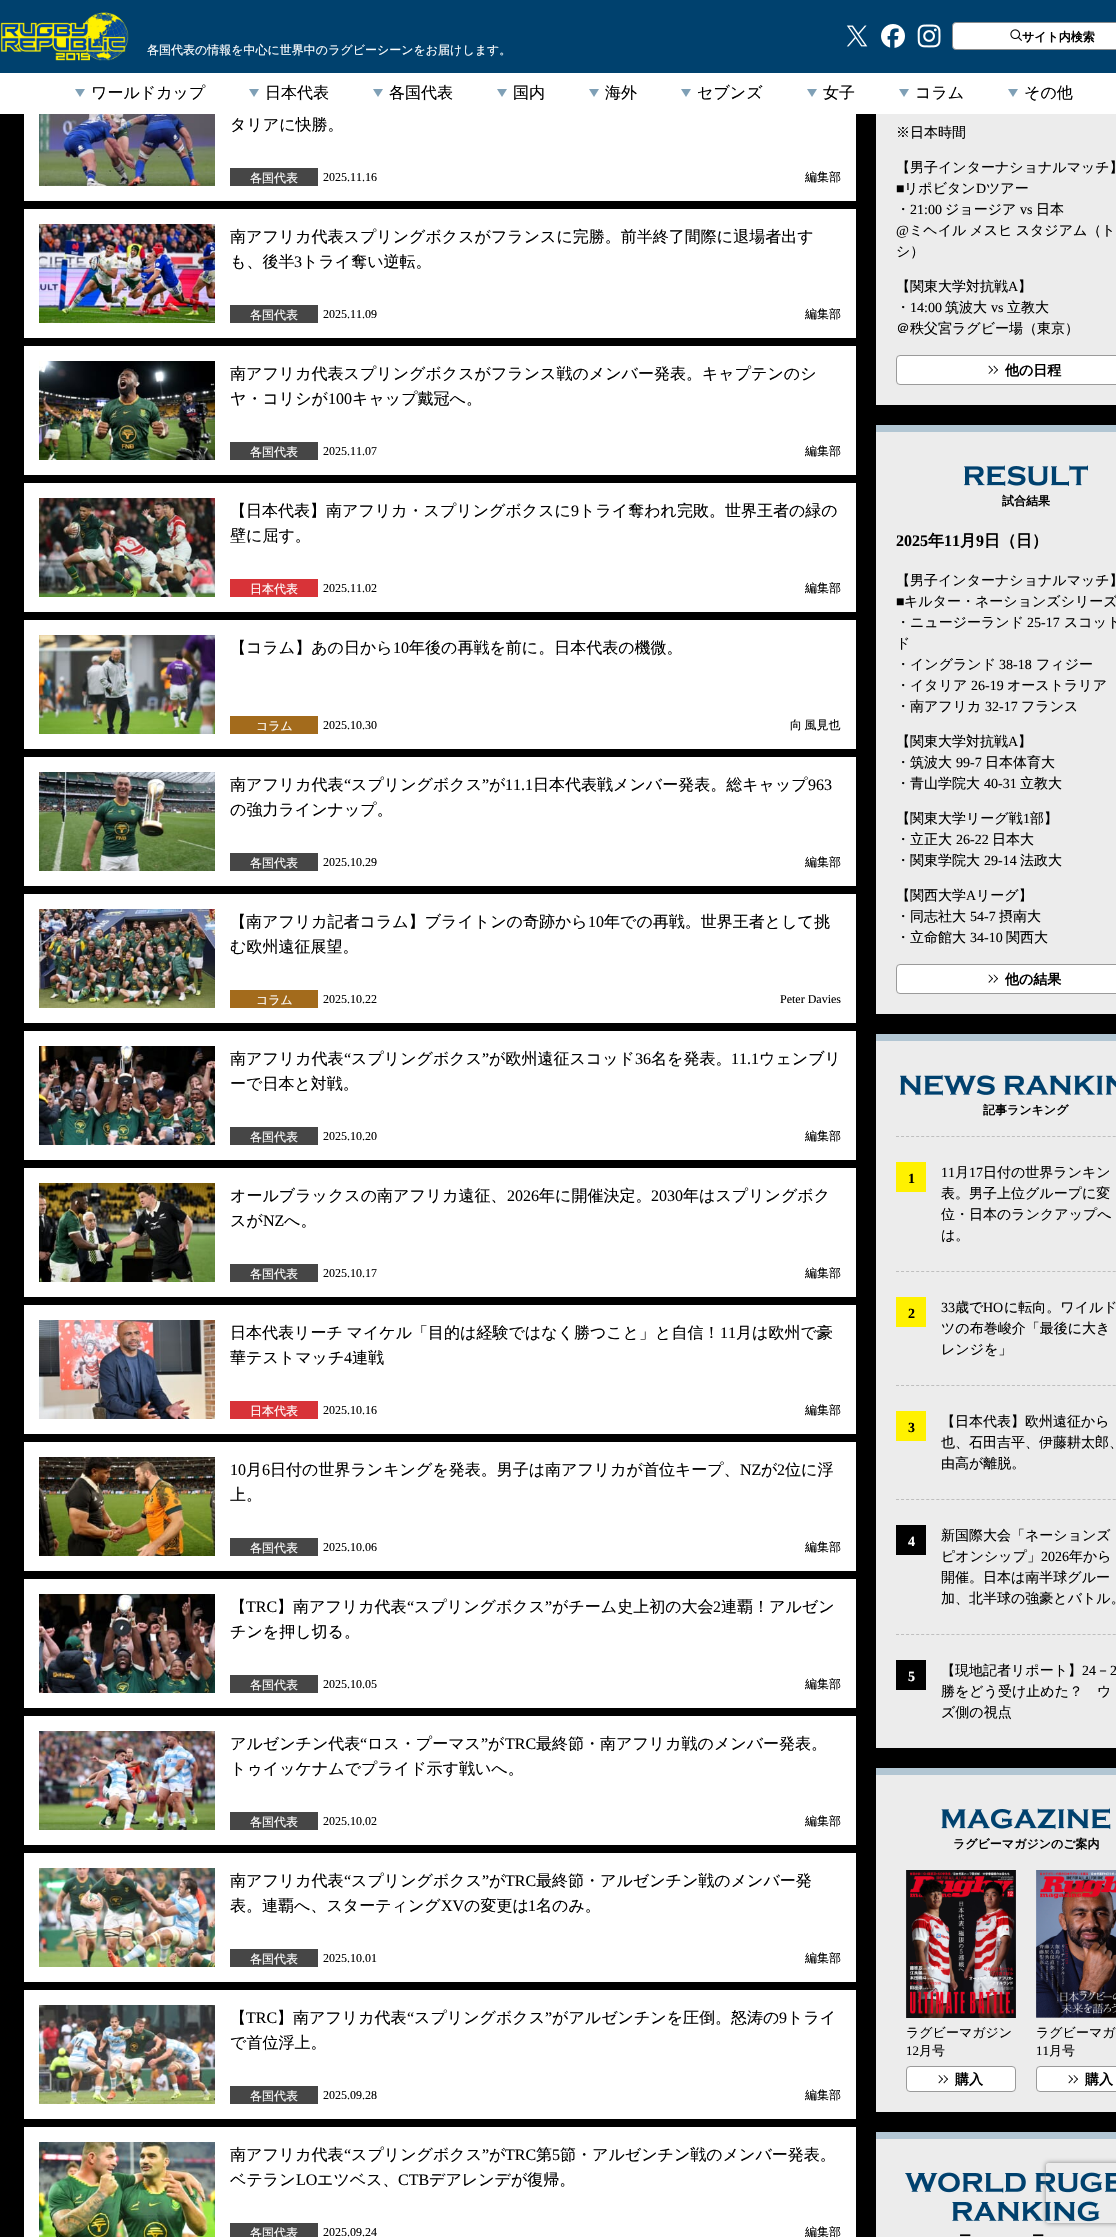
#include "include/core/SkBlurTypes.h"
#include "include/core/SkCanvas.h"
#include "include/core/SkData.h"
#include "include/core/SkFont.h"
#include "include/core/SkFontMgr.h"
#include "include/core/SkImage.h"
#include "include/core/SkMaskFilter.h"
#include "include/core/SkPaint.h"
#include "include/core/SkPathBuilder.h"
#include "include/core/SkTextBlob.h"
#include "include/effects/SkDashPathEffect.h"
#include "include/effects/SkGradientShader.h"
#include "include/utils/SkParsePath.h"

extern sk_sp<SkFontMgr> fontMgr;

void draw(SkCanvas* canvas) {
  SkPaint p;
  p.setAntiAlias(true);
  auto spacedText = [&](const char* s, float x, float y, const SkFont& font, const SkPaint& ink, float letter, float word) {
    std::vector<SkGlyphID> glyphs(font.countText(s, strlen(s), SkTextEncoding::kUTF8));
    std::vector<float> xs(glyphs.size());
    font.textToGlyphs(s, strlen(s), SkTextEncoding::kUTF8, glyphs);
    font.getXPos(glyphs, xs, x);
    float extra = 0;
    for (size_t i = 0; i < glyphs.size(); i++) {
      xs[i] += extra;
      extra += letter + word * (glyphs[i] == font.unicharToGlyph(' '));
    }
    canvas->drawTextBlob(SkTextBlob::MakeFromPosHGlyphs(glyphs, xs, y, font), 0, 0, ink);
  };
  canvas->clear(SK_ColorBLACK);
  p.setColor(SkColorSetRGB(0, 65, 110));
  canvas->drawRect(SkRect::MakeLTRB(0, 0, 1116, 73), p);
  canvas->drawImageRect(SkImages::DeferredFromEncodedData(SkData::MakeFromFileName("images/1.png")), SkRect::MakeLTRB(0, 12, 129, 61), SkSamplingOptions());
  canvas->drawImageRect(SkImages::DeferredFromEncodedData(SkData::MakeFromFileName("images/2.png")), SkRect::MakeLTRB(846, 25, 868, 47), SkSamplingOptions());
  canvas->drawImageRect(SkImages::DeferredFromEncodedData(SkData::MakeFromFileName("images/3.png")), SkRect::MakeLTRB(881, 24, 905, 48), SkSamplingOptions());
  canvas->drawImageRect(SkImages::DeferredFromEncodedData(SkData::MakeFromFileName("images/4.png")), SkRect::MakeLTRB(917, 24, 941, 48), SkSamplingOptions());
  p.setColor(SK_ColorWHITE);
  canvas->drawRoundRect(SkRect::MakeLTRB(952.5f, 22.5f, 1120.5f, 49.5f), 3.5f, 3.5f, p);
  p.setStyle(SkPaint::kStroke_Style);
  p.setStrokeWidth(1);
  p.setColor(SkColorSetRGB(140, 140, 140));
  canvas->drawRoundRect(SkRect::MakeLTRB(952.5f, 22.5f, 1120.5f, 49.5f), 3.5f, 3.5f, p);
  canvas->drawImageRect(SkImages::DeferredFromEncodedData(SkData::MakeFromFileName("images/5.png")), SkRect::MakeLTRB(1010, 29, 1022, 41), SkSamplingOptions());
  p.setStyle(SkPaint::kFill_Style);
  p.setColor(SK_ColorWHITE);
  canvas->drawRect(SkRect::MakeLTRB(0, 73, 1116, 114), p);
  p.setColor(SkColorSetRGB(127, 160, 182));
  canvas->drawPath(SkPathBuilder().moveTo(75, 89).lineTo(85, 89).lineTo(80, 97).close().detach(), p);
  canvas->drawPath(SkPathBuilder().moveTo(249, 89).lineTo(259, 89).lineTo(254, 97).close().detach(), p);
  canvas->drawPath(SkPathBuilder().moveTo(373, 89).lineTo(383, 89).lineTo(378, 97).close().detach(), p);
  canvas->drawPath(SkPathBuilder().moveTo(497, 89).lineTo(507, 89).lineTo(502, 97).close().detach(), p);
  canvas->drawPath(SkPathBuilder().moveTo(589, 89).lineTo(599, 89).lineTo(594, 97).close().detach(), p);
  canvas->drawPath(SkPathBuilder().moveTo(681, 89).lineTo(691, 89).lineTo(686, 97).close().detach(), p);
  canvas->drawPath(SkPathBuilder().moveTo(807, 89).lineTo(817, 89).lineTo(812, 97).close().detach(), p);
  canvas->drawPath(SkPathBuilder().moveTo(899, 89).lineTo(909, 89).lineTo(904, 97).close().detach(), p);
  canvas->drawPath(SkPathBuilder().moveTo(1008, 89).lineTo(1018, 89).lineTo(1013, 97).close().detach(), p);
  p.setColor(SK_ColorWHITE);
  canvas->drawRect(SkRect::MakeLTRB(24, 114, 856, 201), p);
  canvas->drawImageRect(SkImages::DeferredFromEncodedData(SkData::MakeFromFileName("images/6.png")), SkRect::MakeLTRB(39, 114, 215, 186), SkSamplingOptions());
  p.setColor(SkColorSetRGB(70, 70, 70));
  canvas->drawRect(SkRect::MakeLTRB(230, 168, 318, 186), p);
  p.setColor(SK_ColorWHITE);
  canvas->drawRect(SkRect::MakeLTRB(24, 209, 856, 338), p);
  canvas->drawImageRect(SkImages::DeferredFromEncodedData(SkData::MakeFromFileName("images/7.png")), SkRect::MakeLTRB(39, 224, 215, 323), SkSamplingOptions());
  p.setColor(SkColorSetRGB(70, 70, 70));
  canvas->drawRect(SkRect::MakeLTRB(230, 305, 318, 323), p);
  p.setColor(SK_ColorWHITE);
  canvas->drawRect(SkRect::MakeLTRB(24, 346, 856, 475), p);
  canvas->drawImageRect(SkImages::DeferredFromEncodedData(SkData::MakeFromFileName("images/8.png")), SkRect::MakeLTRB(39, 361, 215, 460), SkSamplingOptions());
  p.setColor(SkColorSetRGB(70, 70, 70));
  canvas->drawRect(SkRect::MakeLTRB(230, 442, 318, 460), p);
  p.setColor(SK_ColorWHITE);
  canvas->drawRect(SkRect::MakeLTRB(24, 483, 856, 612), p);
  canvas->drawImageRect(SkImages::DeferredFromEncodedData(SkData::MakeFromFileName("images/9.png")), SkRect::MakeLTRB(39, 498, 215, 597), SkSamplingOptions());
  p.setColor(SkColorSetRGB(216, 51, 56));
  canvas->drawRect(SkRect::MakeLTRB(230, 579, 318, 597), p);
  p.setColor(SK_ColorWHITE);
  canvas->drawRect(SkRect::MakeLTRB(24, 620, 856, 749), p);
  canvas->drawImageRect(SkImages::DeferredFromEncodedData(SkData::MakeFromFileName("images/10.png")), SkRect::MakeLTRB(39, 635, 215, 734), SkSamplingOptions());
  p.setColor(SkColorSetRGB(163, 107, 28));
  canvas->drawRect(SkRect::MakeLTRB(230, 716, 318, 734), p);
  p.setColor(SK_ColorWHITE);
  canvas->drawRect(SkRect::MakeLTRB(24, 757, 856, 886), p);
  canvas->drawImageRect(SkImages::DeferredFromEncodedData(SkData::MakeFromFileName("images/11.png")), SkRect::MakeLTRB(39, 772, 215, 871), SkSamplingOptions());
  p.setColor(SkColorSetRGB(70, 70, 70));
  canvas->drawRect(SkRect::MakeLTRB(230, 853, 318, 871), p);
  p.setColor(SK_ColorWHITE);
  canvas->drawRect(SkRect::MakeLTRB(24, 894, 856, 1023), p);
  canvas->drawImageRect(SkImages::DeferredFromEncodedData(SkData::MakeFromFileName("images/12.png")), SkRect::MakeLTRB(39, 909, 215, 1008), SkSamplingOptions());
  p.setColor(SkColorSetRGB(163, 107, 28));
  canvas->drawRect(SkRect::MakeLTRB(230, 990, 318, 1008), p);
  p.setColor(SK_ColorWHITE);
  canvas->drawRect(SkRect::MakeLTRB(24, 1031, 856, 1160), p);
  canvas->drawImageRect(SkImages::DeferredFromEncodedData(SkData::MakeFromFileName("images/13.png")), SkRect::MakeLTRB(39, 1046, 215, 1145), SkSamplingOptions());
  p.setColor(SkColorSetRGB(70, 70, 70));
  canvas->drawRect(SkRect::MakeLTRB(230, 1127, 318, 1145), p);
  p.setColor(SK_ColorWHITE);
  canvas->drawRect(SkRect::MakeLTRB(24, 1168, 856, 1297), p);
  canvas->drawImageRect(SkImages::DeferredFromEncodedData(SkData::MakeFromFileName("images/14.png")), SkRect::MakeLTRB(39, 1183, 215, 1282), SkSamplingOptions());
  p.setColor(SkColorSetRGB(70, 70, 70));
  canvas->drawRect(SkRect::MakeLTRB(230, 1264, 318, 1282), p);
  p.setColor(SK_ColorWHITE);
  canvas->drawRect(SkRect::MakeLTRB(24, 1305, 856, 1434), p);
  canvas->drawImageRect(SkImages::DeferredFromEncodedData(SkData::MakeFromFileName("images/15.png")), SkRect::MakeLTRB(39, 1320, 215, 1419), SkSamplingOptions());
  p.setColor(SkColorSetRGB(216, 51, 56));
  canvas->drawRect(SkRect::MakeLTRB(230, 1401, 318, 1419), p);
  p.setColor(SK_ColorWHITE);
  canvas->drawRect(SkRect::MakeLTRB(24, 1442, 856, 1571), p);
  canvas->drawImageRect(SkImages::DeferredFromEncodedData(SkData::MakeFromFileName("images/16.png")), SkRect::MakeLTRB(39, 1457, 215, 1556), SkSamplingOptions());
  p.setColor(SkColorSetRGB(70, 70, 70));
  canvas->drawRect(SkRect::MakeLTRB(230, 1538, 318, 1556), p);
  p.setColor(SK_ColorWHITE);
  canvas->drawRect(SkRect::MakeLTRB(24, 1579, 856, 1708), p);
  canvas->drawImageRect(SkImages::DeferredFromEncodedData(SkData::MakeFromFileName("images/17.png")), SkRect::MakeLTRB(39, 1594, 215, 1693), SkSamplingOptions());
  p.setColor(SkColorSetRGB(70, 70, 70));
  canvas->drawRect(SkRect::MakeLTRB(230, 1675, 318, 1693), p);
  p.setColor(SK_ColorWHITE);
  canvas->drawRect(SkRect::MakeLTRB(24, 1716, 856, 1845), p);
  canvas->drawImageRect(SkImages::DeferredFromEncodedData(SkData::MakeFromFileName("images/18.png")), SkRect::MakeLTRB(39, 1731, 215, 1830), SkSamplingOptions());
  p.setColor(SkColorSetRGB(70, 70, 70));
  canvas->drawRect(SkRect::MakeLTRB(230, 1812, 318, 1830), p);
  p.setColor(SK_ColorWHITE);
  canvas->drawRect(SkRect::MakeLTRB(24, 1853, 856, 1982), p);
  canvas->drawImageRect(SkImages::DeferredFromEncodedData(SkData::MakeFromFileName("images/19.png")), SkRect::MakeLTRB(39, 1868, 215, 1967), SkSamplingOptions());
  p.setColor(SkColorSetRGB(70, 70, 70));
  canvas->drawRect(SkRect::MakeLTRB(230, 1949, 318, 1967), p);
  p.setColor(SK_ColorWHITE);
  canvas->drawRect(SkRect::MakeLTRB(24, 1990, 856, 2119), p);
  canvas->drawImageRect(SkImages::DeferredFromEncodedData(SkData::MakeFromFileName("images/20.png")), SkRect::MakeLTRB(39, 2005, 215, 2104), SkSamplingOptions());
  p.setColor(SkColorSetRGB(70, 70, 70));
  canvas->drawRect(SkRect::MakeLTRB(230, 2086, 318, 2104), p);
  p.setColor(SK_ColorWHITE);
  canvas->drawRect(SkRect::MakeLTRB(24, 2127, 856, 2237), p);
  canvas->drawImageRect(SkImages::DeferredFromEncodedData(SkData::MakeFromFileName("images/21.png")), SkRect::MakeLTRB(39, 2142, 215, 2237), SkSamplingOptions());
  p.setColor(SkColorSetRGB(70, 70, 70));
  canvas->drawRect(SkRect::MakeLTRB(230, 2223, 318, 2237), p);
  p.setColor(SkColorSetRGB(236, 236, 236));
  canvas->drawRect(SkRect::MakeLTRB(876, 114, 1116, 405), p);
  p.setColor(SK_ColorWHITE);
  canvas->drawRoundRect(SkRect::MakeLTRB(896.5f, 355.5f, 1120.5f, 384.5f), 3.5f, 3.5f, p);
  p.setStyle(SkPaint::kStroke_Style);
  p.setColor(SkColorSetRGB(154, 154, 154));
  canvas->drawRoundRect(SkRect::MakeLTRB(896.5f, 355.5f, 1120.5f, 384.5f), 3.5f, 3.5f, p);
  p.setStyle(SkPaint::kFill_Style);
  p.setColor(SK_ColorBLACK);
  canvas->drawPath(SkPathBuilder().moveTo(994, 365.5f).lineTo(998, 370).lineTo(997.5f, 370.5f).lineTo(993.5f, 366.5f).close().detach(), p);
  canvas->drawPath(SkPathBuilder().moveTo(997.5f, 369).lineTo(998, 370).lineTo(994, 374).lineTo(993.5f, 373.5f).close().moveTo(989, 365.5f).lineTo(993, 370).lineTo(992.5f, 370.5f).lineTo(988.5f, 366.5f).close().detach(), p);
  canvas->drawPath(SkPathBuilder().moveTo(992.5f, 369).lineTo(993, 370).lineTo(989, 374).lineTo(988.5f, 373.5f).close().detach(), p);
  p.setColor(SkColorSetRGB(236, 236, 236));
  canvas->drawRect(SkRect::MakeLTRB(876, 432, 1116, 1014), p);
  p.setColor(SkColorSetRGB(178, 198, 211));
  canvas->drawRect(SkRect::MakeLTRB(876, 425, 1116, 432), p);
  canvas->drawImageRect(SkImages::DeferredFromEncodedData(SkData::MakeFromFileName("images/22.png")), SkRect::MakeLTRB(964, 465, 1088, 486), SkSamplingOptions());
  p.setColor(SK_ColorWHITE);
  canvas->drawRoundRect(SkRect::MakeLTRB(896.5f, 964.5f, 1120.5f, 993.5f), 3.5f, 3.5f, p);
  p.setStyle(SkPaint::kStroke_Style);
  p.setColor(SkColorSetRGB(154, 154, 154));
  canvas->drawRoundRect(SkRect::MakeLTRB(896.5f, 964.5f, 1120.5f, 993.5f), 3.5f, 3.5f, p);
  p.setStyle(SkPaint::kFill_Style);
  p.setColor(SK_ColorBLACK);
  canvas->drawPath(SkPathBuilder().moveTo(994, 974.5f).lineTo(998, 978.5f).lineTo(997.5f, 979.5f).lineTo(993.5f, 975).close().detach(), p);
  canvas->drawPath(SkPathBuilder().moveTo(997.5f, 978).lineTo(998, 978.5f).lineTo(994, 983).lineTo(993.5f, 982).close().moveTo(989, 974.5f).lineTo(993, 978.5f).lineTo(992.5f, 979.5f).lineTo(988.5f, 975).close().detach(), p);
  canvas->drawPath(SkPathBuilder().moveTo(992.5f, 978).lineTo(993, 978.5f).lineTo(989, 983).lineTo(988.5f, 982).close().detach(), p);
  p.setColor(SkColorSetRGB(236, 236, 236));
  canvas->drawRect(SkRect::MakeLTRB(876, 1041, 1116, 1748), p);
  p.setColor(SkColorSetRGB(178, 198, 211));
  canvas->drawRect(SkRect::MakeLTRB(876, 1034, 1116, 1041), p);
  canvas->drawImageRect(SkImages::DeferredFromEncodedData(SkData::MakeFromFileName("images/23.png")), SkRect::MakeLTRB(900, 1074, 1116, 1096), SkSamplingOptions());
  p.setStyle(SkPaint::kStroke_Style);
  p.setColor(SkColorSetRGB(190, 190, 190));
  p.setPathEffect(SkDashPathEffect::Make({{3, 2.04f}}, 0));
  canvas->drawPath(SkPathBuilder().moveTo(896, 1136.5f).lineTo(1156, 1136.5f).detach(), p);
  p.setPathEffect(nullptr);
  p.setStyle(SkPaint::kFill_Style);
  p.setColor(SkColorSetRGB(255, 241, 0));
  canvas->drawRect(SkRect::MakeLTRB(896, 1162, 926, 1192), p);
  p.setStyle(SkPaint::kStroke_Style);
  p.setColor(SkColorSetRGB(190, 190, 190));
  p.setPathEffect(SkDashPathEffect::Make({{3, 2.04f}}, 0));
  canvas->drawPath(SkPathBuilder().moveTo(896, 1271.5f).lineTo(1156, 1271.5f).detach(), p);
  p.setPathEffect(nullptr);
  p.setStyle(SkPaint::kFill_Style);
  p.setColor(SkColorSetRGB(255, 241, 0));
  canvas->drawRect(SkRect::MakeLTRB(896, 1297, 926, 1327), p);
  p.setStyle(SkPaint::kStroke_Style);
  p.setColor(SkColorSetRGB(190, 190, 190));
  p.setPathEffect(SkDashPathEffect::Make({{3, 2.04f}}, 0));
  canvas->drawPath(SkPathBuilder().moveTo(896, 1385.5f).lineTo(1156, 1385.5f).detach(), p);
  p.setPathEffect(nullptr);
  p.setStyle(SkPaint::kFill_Style);
  p.setColor(SkColorSetRGB(255, 241, 0));
  canvas->drawRect(SkRect::MakeLTRB(896, 1411, 926, 1441), p);
  p.setStyle(SkPaint::kStroke_Style);
  p.setColor(SkColorSetRGB(190, 190, 190));
  p.setPathEffect(SkDashPathEffect::Make({{3, 2.04f}}, 0));
  canvas->drawPath(SkPathBuilder().moveTo(896, 1499.5f).lineTo(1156, 1499.5f).detach(), p);
  p.setPathEffect(nullptr);
  p.setStyle(SkPaint::kFill_Style);
  p.setColor(SK_ColorBLACK);
  canvas->drawRect(SkRect::MakeLTRB(896, 1525, 926, 1555), p);
  p.setStyle(SkPaint::kStroke_Style);
  p.setColor(SkColorSetRGB(190, 190, 190));
  p.setPathEffect(SkDashPathEffect::Make({{3, 2.04f}}, 0));
  canvas->drawPath(SkPathBuilder().moveTo(896, 1634.5f).lineTo(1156, 1634.5f).detach(), p);
  p.setPathEffect(nullptr);
  p.setStyle(SkPaint::kFill_Style);
  p.setColor(SK_ColorBLACK);
  canvas->drawRect(SkRect::MakeLTRB(896, 1660, 926, 1690), p);
  p.setColor(SkColorSetRGB(236, 236, 236));
  canvas->drawRect(SkRect::MakeLTRB(876, 1775, 1116, 2112), p);
  p.setColor(SkColorSetRGB(178, 198, 211));
  canvas->drawRect(SkRect::MakeLTRB(876, 1768, 1116, 1775), p);
  canvas->drawImageRect(SkImages::DeferredFromEncodedData(SkData::MakeFromFileName("images/24.png")), SkRect::MakeLTRB(941, 1808, 1111, 1829), SkSamplingOptions());
  canvas->drawImageRect(SkImages::DeferredFromEncodedData(SkData::MakeFromFileName("images/25.png")), SkRect::MakeLTRB(906, 1870, 1016, 2018), SkSamplingOptions());
  p.setColor(SK_ColorWHITE);
  canvas->drawRoundRect(SkRect::MakeLTRB(906.5f, 2066.5f, 1015.5f, 2091.5f), 3.5f, 3.5f, p);
  p.setStyle(SkPaint::kStroke_Style);
  p.setColor(SkColorSetRGB(154, 154, 154));
  canvas->drawRoundRect(SkRect::MakeLTRB(906.5f, 2066.5f, 1015.5f, 2091.5f), 3.5f, 3.5f, p);
  p.setStyle(SkPaint::kFill_Style);
  p.setColor(SK_ColorBLACK);
  canvas->drawPath(SkPathBuilder().moveTo(944, 2075).lineTo(948, 2079).lineTo(947.5f, 2080).lineTo(943.5f, 2075.5f).close().detach(), p);
  canvas->drawPath(SkPathBuilder().moveTo(947.5f, 2078.5f).lineTo(948, 2079).lineTo(944, 2083.5f).lineTo(943.5f, 2082.5f).close().moveTo(939, 2075).lineTo(943, 2079).lineTo(942.5f, 2080).lineTo(938.5f, 2075.5f).close().detach(), p);
  canvas->drawPath(SkPathBuilder().moveTo(942.5f, 2078.5f).lineTo(943, 2079).lineTo(939, 2083.5f).lineTo(938.5f, 2082.5f).close().detach(), p);
  canvas->drawImageRect(SkImages::DeferredFromEncodedData(SkData::MakeFromFileName("images/26.png")), SkRect::MakeLTRB(1036, 1870, 1116, 2018), SkSamplingOptions());
  p.setColor(SK_ColorWHITE);
  canvas->drawRoundRect(SkRect::MakeLTRB(1036.5f, 2066.5f, 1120.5f, 2091.5f), 3.5f, 3.5f, p);
  p.setStyle(SkPaint::kStroke_Style);
  p.setColor(SkColorSetRGB(154, 154, 154));
  canvas->drawRoundRect(SkRect::MakeLTRB(1036.5f, 2066.5f, 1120.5f, 2091.5f), 3.5f, 3.5f, p);
  p.setStyle(SkPaint::kFill_Style);
  p.setColor(SK_ColorBLACK);
  canvas->drawPath(SkPathBuilder().moveTo(1074, 2075).lineTo(1078, 2079).lineTo(1077.5f, 2080).lineTo(1073.5f, 2075.5f).close().detach(), p);
  canvas->drawPath(SkPathBuilder().moveTo(1077.5f, 2078.5f).lineTo(1078, 2079).lineTo(1074, 2083.5f).lineTo(1073.5f, 2082.5f).close().moveTo(1069, 2075).lineTo(1073, 2079).lineTo(1072.5f, 2080).lineTo(1068.5f, 2075.5f).close().detach(), p);
  canvas->drawPath(SkPathBuilder().moveTo(1072.5f, 2078.5f).lineTo(1073, 2079).lineTo(1069, 2083.5f).lineTo(1068.5f, 2082.5f).close().detach(), p);
  p.setColor(SkColorSetRGB(236, 236, 236));
  canvas->drawRect(SkRect::MakeLTRB(876, 2139, 1116, 2237), p);
  p.setColor(SkColorSetRGB(178, 198, 211));
  canvas->drawRect(SkRect::MakeLTRB(876, 2132, 1116, 2139), p);
  canvas->drawImageRect(SkImages::DeferredFromEncodedData(SkData::MakeFromFileName("images/27.png")), SkRect::MakeLTRB(905, 2172, 1116, 2222), SkSamplingOptions());
  canvas->save();
  canvas->clipPath(SkPathBuilder(SkPathFillType::kEvenOdd).moveTo(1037, 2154).lineTo(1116, 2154).lineTo(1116, 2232).lineTo(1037, 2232).close().moveTo(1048, 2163).lineTo(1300, 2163).cubicTo(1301, 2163, 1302, 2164, 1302, 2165).lineTo(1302, 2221).cubicTo(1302, 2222, 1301, 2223, 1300, 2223).lineTo(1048, 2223).cubicTo(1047, 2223, 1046, 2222, 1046, 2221).lineTo(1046, 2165).cubicTo(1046, 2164, 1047, 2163, 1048, 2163).close().detach(), true);
  p.setColor(SkColorSetRGB(128, 128, 128));
  p.setMaskFilter(SkMaskFilter::MakeBlur(kNormal_SkBlurStyle, 2.5f));
  canvas->drawRoundRect(SkRect::MakeLTRB(1046, 2163, 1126, 2223), 2, 2, p);
  p.setMaskFilter(nullptr);
  canvas->restore();
  SkFont font1(fontMgr->matchFamilyStyle("WenQuanYi Zen Hei", SkFontStyle::Bold()), 12);
  font1.setSubpixel(true);
  p.setColor(SK_ColorBLACK);
  canvas->drawString("サイト内検索", 1022, 41, font1, p);
  SkFont font2(fontMgr->matchFamilyStyle("WenQuanYi Zen Hei", SkFontStyle(500, SkFontStyle::kNormal_Width, SkFontStyle::kUpright_Slant)), 12);
  font2.setSubpixel(true);
  p.setColor(SK_ColorWHITE);
  canvas->drawString("各国代表の情報を中心に世界中のラグビーシーンをお届けします。", 147, 54, font2, p);
  SkFont font3(fontMgr->matchFamilyStyle("WenQuanYi Zen Hei", SkFontStyle(500, SkFontStyle::kNormal_Width, SkFontStyle::kUpright_Slant)), 16);
  font3.setSubpixel(true);
  p.setColor(SK_ColorBLACK);
  canvas->drawString("ワールドカップ", 91, 98, font3, p);
  canvas->drawString("日本代表", 265, 98, font3, p);
  canvas->drawString("各国代表", 389, 98, font3, p);
  canvas->drawString("国内", 513, 98, font3, p);
  canvas->drawString("海外", 605, 98, font3, p);
  canvas->drawString("セブンズ", 697, 98, font3, p);
  canvas->drawString("女子", 823, 98, font3, p);
  canvas->drawString("コラム", 915, 98, font3, p);
  canvas->drawString("その他", 1024, 98, font3, p);
  canvas->drawString("タリアに快勝。", 230, 130, font3, p);
  p.setColor(SK_ColorWHITE);
  canvas->drawString("各国代表", 250, 182, font2, p);
  SkFont font4(fontMgr->matchFamilyStyle("Liberation Serif", SkFontStyle::Normal()), 12);
  font4.setSubpixel(true);
  p.setColor(SK_ColorBLACK);
  canvas->drawString("2025.11.16", 323, 181, font4, p);
  canvas->drawString("編集部", 805, 181, font2, p);
  canvas->drawString("南アフリカ代表スプリングボクスがフランスに完勝。前半終了間際に退場者出す", 230, 242, font3, p);
  canvas->drawString("も、後半", 230, 267, font3, p);
  SkFont font5(fontMgr->matchFamilyStyle("Liberation Serif", SkFontStyle::Normal()), 16);
  font5.setSubpixel(true);
  canvas->drawString("3", 294, 267, font5, p);
  canvas->drawString("トライ奪い逆転。", 302, 267, font3, p);
  p.setColor(SK_ColorWHITE);
  canvas->drawString("各国代表", 250, 319, font2, p);
  p.setColor(SK_ColorBLACK);
  canvas->drawString("2025.11.09", 323, 318, font4, p);
  canvas->drawString("編集部", 805, 318, font2, p);
  canvas->drawString("南アフリカ代表スプリングボクスがフランス戦のメンバー発表。キャプテンのシ", 230, 379, font3, p);
  canvas->drawString("ヤ・コリシが", 230, 404, font3, p);
  canvas->drawString("100", 328, 404, font5, p);
  canvas->drawString("キャップ戴冠へ。", 352, 404, font3, p);
  p.setColor(SK_ColorWHITE);
  canvas->drawString("各国代表", 250, 456, font2, p);
  p.setColor(SK_ColorBLACK);
  canvas->drawString("2025.11.07", 323, 455, font4, p);
  canvas->drawString("編集部", 805, 455, font2, p);
  canvas->drawString("【日本代表】南アフリカ・スプリングボクスに", 230, 516, font3, p);
  canvas->drawString("9", 571, 516, font5, p);
  canvas->drawString("トライ奪われ完敗。世界王者の緑の", 579, 516, font3, p);
  canvas->drawString("壁に屈す。", 230, 541, font3, p);
  p.setColor(SK_ColorWHITE);
  canvas->drawString("日本代表", 250, 593, font2, p);
  p.setColor(SK_ColorBLACK);
  canvas->drawString("2025.11.02", 323, 592, font4, p);
  canvas->drawString("編集部", 805, 592, font2, p);
  canvas->drawString("【コラム】あの日から", 230, 653, font3, p);
  canvas->drawString("10", 393, 653, font5, p);
  canvas->drawString("年後の再戦を前に。日本代表の機微。", 409, 653, font3, p);
  p.setColor(SK_ColorWHITE);
  canvas->drawString("コラム", 256, 730, font2, p);
  p.setColor(SK_ColorBLACK);
  canvas->drawString("2025.10.30", 323, 729, font4, p);
  spacedText("向 風見也", 790, 729, font2, p, 0, -1);
  canvas->drawString("南アフリカ代表", 230, 790, font3, p);
  canvas->drawString("“", 344, 790, font5, p);
  canvas->drawString("スプリングボクス", 351, 790, font3, p);
  canvas->drawString("”", 482, 790, font5, p);
  canvas->drawString("が", 489, 790, font3, p);
  canvas->drawString("11.1", 505, 790, font5, p);
  canvas->drawString("日本代表戦メンバー発表。総キャップ", 533, 790, font3, p);
  canvas->drawString("963", 808, 790, font5, p);
  canvas->drawString("の強力ラインナップ。", 230, 815, font3, p);
  p.setColor(SK_ColorWHITE);
  canvas->drawString("各国代表", 250, 867, font2, p);
  p.setColor(SK_ColorBLACK);
  canvas->drawString("2025.10.29", 323, 866, font4, p);
  canvas->drawString("編集部", 805, 866, font2, p);
  canvas->drawString("【南アフリカ記者コラム】ブライトンの奇跡から", 230, 927, font3, p);
  canvas->drawString("10", 588, 927, font5, p);
  canvas->drawString("年での再戦。世界王者として挑", 604, 927, font3, p);
  canvas->drawString("む欧州遠征展望。", 230, 952, font3, p);
  p.setColor(SK_ColorWHITE);
  canvas->drawString("コラム", 256, 1004, font2, p);
  p.setColor(SK_ColorBLACK);
  canvas->drawString("2025.10.22", 323, 1003, font4, p);
  canvas->drawString("Peter Davies", 780, 1003, font4, p);
  canvas->drawString("南アフリカ代表", 230, 1064, font3, p);
  canvas->drawString("“", 344, 1064, font5, p);
  canvas->drawString("スプリングボクス", 351, 1064, font3, p);
  canvas->drawString("”", 482, 1064, font5, p);
  canvas->drawString("が欧州遠征スコッド", 489, 1064, font3, p);
  canvas->drawString("36", 635, 1064, font5, p);
  canvas->drawString("名を発表。", 651, 1064, font3, p);
  canvas->drawString("11.1", 731, 1064, font5, p);
  canvas->drawString("ウェンブリ", 759, 1064, font3, p);
  canvas->drawString("ーで日本と対戦。", 230, 1089, font3, p);
  p.setColor(SK_ColorWHITE);
  canvas->drawString("各国代表", 250, 1141, font2, p);
  p.setColor(SK_ColorBLACK);
  canvas->drawString("2025.10.20", 323, 1140, font4, p);
  canvas->drawString("編集部", 805, 1140, font2, p);
  canvas->drawString("オールブラックスの南アフリカ遠征、", 230, 1201, font3, p);
  canvas->drawString("2026", 507, 1201, font5, p);
  canvas->drawString("年に開催決定。", 539, 1201, font3, p);
  canvas->drawString("2030", 651, 1201, font5, p);
  canvas->drawString("年はスプリングボク", 683, 1201, font3, p);
  canvas->drawString("スが", 230, 1226, font3, p);
  canvas->drawString("NZ", 263, 1226, font5, p);
  canvas->drawString("へ。", 284, 1226, font3, p);
  p.setColor(SK_ColorWHITE);
  canvas->drawString("各国代表", 250, 1278, font2, p);
  p.setColor(SK_ColorBLACK);
  canvas->drawString("2025.10.17", 323, 1277, font4, p);
  canvas->drawString("編集部", 805, 1277, font2, p);
  spacedText("日本代表リーチ マイケル「目的は経験ではなく勝つこと」と自信！", 230, 1338, font3, p, 0, -1);
  canvas->drawString("11", 720, 1338, font5, p);
  canvas->drawString("月は欧州で豪", 736, 1338, font3, p);
  canvas->drawString("華テストマッチ", 230, 1363, font3, p);
  canvas->drawString("4", 344, 1363, font5, p);
  canvas->drawString("連戦", 352, 1363, font3, p);
  p.setColor(SK_ColorWHITE);
  canvas->drawString("日本代表", 250, 1415, font2, p);
  p.setColor(SK_ColorBLACK);
  canvas->drawString("2025.10.16", 323, 1414, font4, p);
  canvas->drawString("編集部", 805, 1414, font2, p);
  canvas->drawString("10", 230, 1475, font5, p);
  canvas->drawString("月", 246, 1475, font3, p);
  canvas->drawString("6", 262, 1475, font5, p);
  canvas->drawString("日付の世界ランキングを発表。男子は南アフリカが首位キープ、", 270, 1475, font3, p);
  canvas->drawString("NZ", 740, 1475, font5, p);
  canvas->drawString("が", 761, 1475, font3, p);
  canvas->drawString("2", 777, 1475, font5, p);
  canvas->drawString("位に浮", 785, 1475, font3, p);
  canvas->drawString("上。", 230, 1500, font3, p);
  p.setColor(SK_ColorWHITE);
  canvas->drawString("各国代表", 250, 1552, font2, p);
  p.setColor(SK_ColorBLACK);
  canvas->drawString("2025.10.06", 323, 1551, font4, p);
  canvas->drawString("編集部", 805, 1551, font2, p);
  canvas->drawString("【", 230, 1612, font3, p);
  canvas->drawString("TRC", 246, 1612, font5, p);
  canvas->drawString("】南アフリカ代表", 277, 1612, font3, p);
  canvas->drawString("“", 407, 1612, font5, p);
  canvas->drawString("スプリングボクス", 414, 1612, font3, p);
  canvas->drawString("”", 545, 1612, font5, p);
  canvas->drawString("がチーム史上初の大会", 552, 1612, font3, p);
  canvas->drawString("2", 713, 1612, font5, p);
  canvas->drawString("連覇！アルゼン", 721, 1612, font3, p);
  canvas->drawString("チンを押し切る。", 230, 1637, font3, p);
  p.setColor(SK_ColorWHITE);
  canvas->drawString("各国代表", 250, 1689, font2, p);
  p.setColor(SK_ColorBLACK);
  canvas->drawString("2025.10.05", 323, 1688, font4, p);
  canvas->drawString("編集部", 805, 1688, font2, p);
  canvas->drawString("アルゼンチン代表", 230, 1749, font3, p);
  canvas->drawString("“", 360, 1749, font5, p);
  canvas->drawString("ロス・プーマス", 367, 1749, font3, p);
  canvas->drawString("”", 481, 1749, font5, p);
  canvas->drawString("が", 488, 1749, font3, p);
  canvas->drawString("TRC", 505, 1749, font5, p);
  canvas->drawString("最終節・南アフリカ戦のメンバー発表。", 536, 1749, font3, p);
  canvas->drawString("トゥイッケナムでプライド示す戦いへ。", 230, 1774, font3, p);
  p.setColor(SK_ColorWHITE);
  canvas->drawString("各国代表", 250, 1826, font2, p);
  p.setColor(SK_ColorBLACK);
  canvas->drawString("2025.10.02", 323, 1825, font4, p);
  canvas->drawString("編集部", 805, 1825, font2, p);
  canvas->drawString("南アフリカ代表", 230, 1886, font3, p);
  canvas->drawString("“", 344, 1886, font5, p);
  canvas->drawString("スプリングボクス", 351, 1886, font3, p);
  canvas->drawString("”", 482, 1886, font5, p);
  canvas->drawString("が", 489, 1886, font3, p);
  canvas->drawString("TRC", 505, 1886, font5, p);
  canvas->drawString("最終節・アルゼンチン戦のメンバー発", 536, 1886, font3, p);
  canvas->drawString("表。連覇へ、スターティング", 230, 1911, font3, p);
  canvas->drawString("XV", 441, 1911, font5, p);
  canvas->drawString("の変更は", 464, 1911, font3, p);
  canvas->drawString("1", 528, 1911, font5, p);
  canvas->drawString("名のみ。", 536, 1911, font3, p);
  p.setColor(SK_ColorWHITE);
  canvas->drawString("各国代表", 250, 1963, font2, p);
  p.setColor(SK_ColorBLACK);
  canvas->drawString("2025.10.01", 323, 1962, font4, p);
  canvas->drawString("編集部", 805, 1962, font2, p);
  canvas->drawString("【", 230, 2023, font3, p);
  canvas->drawString("TRC", 246, 2023, font5, p);
  canvas->drawString("】南アフリカ代表", 277, 2023, font3, p);
  canvas->drawString("“", 407, 2023, font5, p);
  canvas->drawString("スプリングボクス", 414, 2023, font3, p);
  canvas->drawString("”", 545, 2023, font5, p);
  canvas->drawString("がアルゼンチンを圧倒。怒涛の", 552, 2023, font3, p);
  canvas->drawString("9", 779, 2023, font5, p);
  canvas->drawString("トライ", 787, 2023, font3, p);
  canvas->drawString("で首位浮上。", 230, 2048, font3, p);
  p.setColor(SK_ColorWHITE);
  canvas->drawString("各国代表", 250, 2100, font2, p);
  p.setColor(SK_ColorBLACK);
  canvas->drawString("2025.09.28", 323, 2099, font4, p);
  canvas->drawString("編集部", 805, 2099, font2, p);
  canvas->drawString("南アフリカ代表", 230, 2160, font3, p);
  canvas->drawString("“", 344, 2160, font5, p);
  canvas->drawString("スプリングボクス", 351, 2160, font3, p);
  canvas->drawString("”", 482, 2160, font5, p);
  canvas->drawString("が", 489, 2160, font3, p);
  canvas->drawString("TRC", 505, 2160, font5, p);
  canvas->drawString("第", 536, 2160, font3, p);
  canvas->drawString("5", 552, 2160, font5, p);
  canvas->drawString("節・アルゼンチン戦のメンバー発表。", 560, 2160, font3, p);
  canvas->drawString("ベテラン", 230, 2185, font3, p);
  canvas->drawString("LO", 296, 2185, font5, p);
  canvas->drawString("エツベス、", 317, 2185, font3, p);
  canvas->drawString("CTB", 398, 2185, font5, p);
  canvas->drawString("デアレンデが復帰。", 429, 2185, font3, p);
  p.setColor(SK_ColorWHITE);
  canvas->drawString("各国代表", 250, 2237, font2, p);
  p.setColor(SK_ColorBLACK);
  canvas->drawString("2025.09.24", 323, 2236, font4, p);
  canvas->drawString("編集部", 805, 2236, font2, p);
  SkFont font6(fontMgr->matchFamilyStyle("WenQuanYi Zen Hei", SkFontStyle(500, SkFontStyle::kNormal_Width, SkFontStyle::kUpright_Slant)), 14);
  font6.setSubpixel(true);
  canvas->drawString("※日本時間", 896, 137, font6, p);
  canvas->drawString("【男子インターナショナルマッチ】", 896, 172, font6, p);
  SkFont font7(fontMgr->matchFamilyStyle("Liberation Serif", SkFontStyle::Normal()), 14);
  font7.setSubpixel(true);
  canvas->drawString("■", 896, 193, font7, p);
  canvas->drawString("リポビタン", 904, 193, font6, p);
  canvas->drawString("D", 976, 193, font7, p);
  canvas->drawString("ツアー", 986, 193, font6, p);
  canvas->drawString("・", 896, 214, font6, p);
  canvas->drawString("21:00", 910, 214, font7, p);
  canvas->drawString("ジョージア", 945, 214, font6, p);
  canvas->drawString("vs", 1020, 214, font7, p);
  canvas->drawString("日本", 1036, 214, font6, p);
  canvas->drawString("@", 896, 235, font7, p);
  spacedText("ミヘイル メスヒ スタジアム（ト", 909, 235, font6, p, 0, -1);
  canvas->drawString("シ）", 896, 256, font6, p);
  canvas->drawString("【関東大学対抗戦", 896, 291, font6, p);
  canvas->drawString("A", 1008, 291, font7, p);
  canvas->drawString("】", 1018, 291, font6, p);
  canvas->drawString("・", 896, 312, font6, p);
  canvas->drawString("14:00", 910, 312, font7, p);
  canvas->drawString("筑波大", 945, 312, font6, p);
  canvas->drawString("vs", 991, 312, font7, p);
  canvas->drawString("立教大", 1007, 312, font6, p);
  canvas->drawString("＠秩父宮ラグビー場（東京）", 896, 333, font6, p);
  SkFont font8(fontMgr->matchFamilyStyle("WenQuanYi Zen Hei", SkFontStyle::Bold()), 14);
  font8.setSubpixel(true);
  canvas->drawString("他の日程", 1005, 375, font8, p);
  canvas->drawString("試合結果", 1002, 505, font1, p);
  SkFont font9(fontMgr->matchFamilyStyle("Liberation Serif", SkFontStyle::Bold()), 16);
  font9.setSubpixel(true);
  canvas->drawString("2025", 896, 546, font9, p);
  SkFont font10(fontMgr->matchFamilyStyle("WenQuanYi Zen Hei", SkFontStyle::Bold()), 16);
  font10.setSubpixel(true);
  canvas->drawString("年", 928, 546, font10, p);
  canvas->drawString("11", 944, 546, font9, p);
  canvas->drawString("月", 960, 546, font10, p);
  canvas->drawString("9", 976, 546, font9, p);
  canvas->drawString("日（日）", 984, 546, font10, p);
  canvas->drawString("【男子インターナショナルマッチ】", 896, 585, font6, p);
  canvas->drawString("■", 896, 606, font7, p);
  canvas->drawString("キルター・ネーションズシリーズ", 904, 606, font6, p);
  canvas->drawString("・ニュージーランド", 896, 627, font6, p);
  canvas->drawString("25-17", 1027, 627, font7, p);
  canvas->drawString("スコット", 1064, 627, font6, p);
  canvas->drawString("ド", 896, 648, font6, p);
  canvas->drawString("・イングランド", 896, 669, font6, p);
  canvas->drawString("38-18", 999, 669, font7, p);
  canvas->drawString("フィジー", 1036, 669, font6, p);
  canvas->drawString("・イタリア", 896, 690, font6, p);
  canvas->drawString("26-19", 971, 690, font7, p);
  canvas->drawString("オーストラリア", 1007, 690, font6, p);
  canvas->drawString("・南アフリカ", 896, 711, font6, p);
  canvas->drawString("32-17", 985, 711, font7, p);
  canvas->drawString("フランス", 1021, 711, font6, p);
  canvas->drawString("【関東大学対抗戦", 896, 746, font6, p);
  canvas->drawString("A", 1008, 746, font7, p);
  canvas->drawString("】", 1018, 746, font6, p);
  canvas->drawString("・筑波大", 896, 767, font6, p);
  canvas->drawString("99-7", 956, 767, font7, p);
  canvas->drawString("日本体育大", 985, 767, font6, p);
  canvas->drawString("・青山学院大", 896, 788, font6, p);
  canvas->drawString("40-31", 984, 788, font7, p);
  canvas->drawString("立教大", 1020, 788, font6, p);
  canvas->drawString("【関東大学リーグ戦", 896, 823, font6, p);
  canvas->drawString("1", 1023, 823, font7, p);
  canvas->drawString("部】", 1030, 823, font6, p);
  canvas->drawString("・立正大", 896, 844, font6, p);
  canvas->drawString("26-22", 956, 844, font7, p);
  canvas->drawString("日本大", 992, 844, font6, p);
  canvas->drawString("・関東学院大", 896, 865, font6, p);
  canvas->drawString("29-14", 984, 865, font7, p);
  canvas->drawString("法政大", 1020, 865, font6, p);
  canvas->drawString("【関西大学", 896, 900, font6, p);
  canvas->drawString("A", 966, 900, font7, p);
  canvas->drawString("リーグ】", 976, 900, font6, p);
  canvas->drawString("・同志社大", 896, 921, font6, p);
  canvas->drawString("54-7", 970, 921, font7, p);
  canvas->drawString("摂南大", 999, 921, font6, p);
  canvas->drawString("・立命館大", 896, 942, font6, p);
  canvas->drawString("34-10", 970, 942, font7, p);
  canvas->drawString("関西大", 1006, 942, font6, p);
  canvas->drawString("他の結果", 1005, 984, font8, p);
  canvas->drawString("記事ランキング", 983, 1114, font1, p);
  SkFont font11(fontMgr->matchFamilyStyle("Liberation Serif", SkFontStyle::Bold()), 14);
  font11.setSubpixel(true);
  canvas->drawString("1", 908, 1183, font11, p);
  canvas->drawString("11", 941, 1177, font7, p);
  canvas->drawString("月", 955, 1177, font6, p);
  canvas->drawString("17", 969, 1177, font7, p);
  canvas->drawString("日付の世界ランキン", 983, 1177, font6, p);
  canvas->drawString("表。男子上位グループに変", 941, 1198, font6, p);
  canvas->drawString("位・日本のランクアップへ", 941, 1219, font6, p);
  canvas->drawString("は。", 941, 1240, font6, p);
  canvas->drawString("2", 908, 1318, font11, p);
  canvas->drawString("33", 941, 1312, font7, p);
  canvas->drawString("歳で", 955, 1312, font6, p);
  canvas->drawString("HO", 983, 1312, font7, p);
  canvas->drawString("に転向。ワイルド", 1004, 1312, font6, p);
  canvas->drawString("ツの布巻峻介「最後に大き", 941, 1333, font6, p);
  canvas->drawString("レンジを」", 941, 1354, font6, p);
  canvas->drawString("3", 908, 1432, font11, p);
  canvas->drawString("【日本代表】欧州遠征から", 941, 1426, font6, p);
  canvas->drawString("也、石田吉平、伊藤耕太郎、", 941, 1447, font6, p);
  canvas->drawString("由高が離脱。", 941, 1468, font6, p);
  p.setColor(SK_ColorWHITE);
  canvas->drawString("4", 908, 1546, font11, p);
  p.setColor(SK_ColorBLACK);
  canvas->drawString("新国際大会「ネーションズ", 941, 1540, font6, p);
  canvas->drawString("ピオンシップ」", 941, 1561, font6, p);
  canvas->drawString("2026", 1041, 1561, font7, p);
  canvas->drawString("年から", 1069, 1561, font6, p);
  canvas->drawString("開催。日本は南半球グルー", 941, 1582, font6, p);
  canvas->drawString("加、北半球の強豪とバトル。", 941, 1603, font6, p);
  p.setColor(SK_ColorWHITE);
  canvas->drawString("5", 908, 1681, font11, p);
  p.setColor(SK_ColorBLACK);
  canvas->drawString("【現地記者リポート】", 941, 1675, font6, p);
  canvas->drawString("24", 1082, 1675, font7, p);
  canvas->drawString("－", 1096, 1675, font6, p);
  canvas->drawString("2", 1110, 1675, font7, p);
  canvas->drawString("勝をどう受け止めた？　ウ", 941, 1696, font6, p);
  canvas->drawString("ズ側の視点", 941, 1717, font6, p);
  canvas->drawString("ラグビーマガジンのご案内", 953, 1848, font1, p);
  SkFont font12(fontMgr->matchFamilyStyle("WenQuanYi Zen Hei", SkFontStyle(500, SkFontStyle::kNormal_Width, SkFontStyle::kUpright_Slant)), 13);
  font12.setSubpixel(true);
  canvas->drawString("ラグビーマガジン", 906, 2037, font12, p);
  SkFont font13(fontMgr->matchFamilyStyle("Liberation Serif", SkFontStyle::Normal()), 13);
  font13.setSubpixel(true);
  canvas->drawString("12", 906, 2055, font13, p);
  canvas->drawString("月号", 919, 2055, font12, p);
  canvas->drawString("購入", 955, 2084, font8, p);
  canvas->drawString("ラグビーマガ", 1036, 2037, font12, p);
  canvas->drawString("11", 1036, 2055, font13, p);
  canvas->drawString("月号", 1049, 2055, font12, p);
  canvas->drawString("購入", 1085, 2084, font8, p);
  canvas->drawString("ー", 959, 2240, font1, p);
  canvas->drawString("ー", 1032, 2240, font1, p);
}
